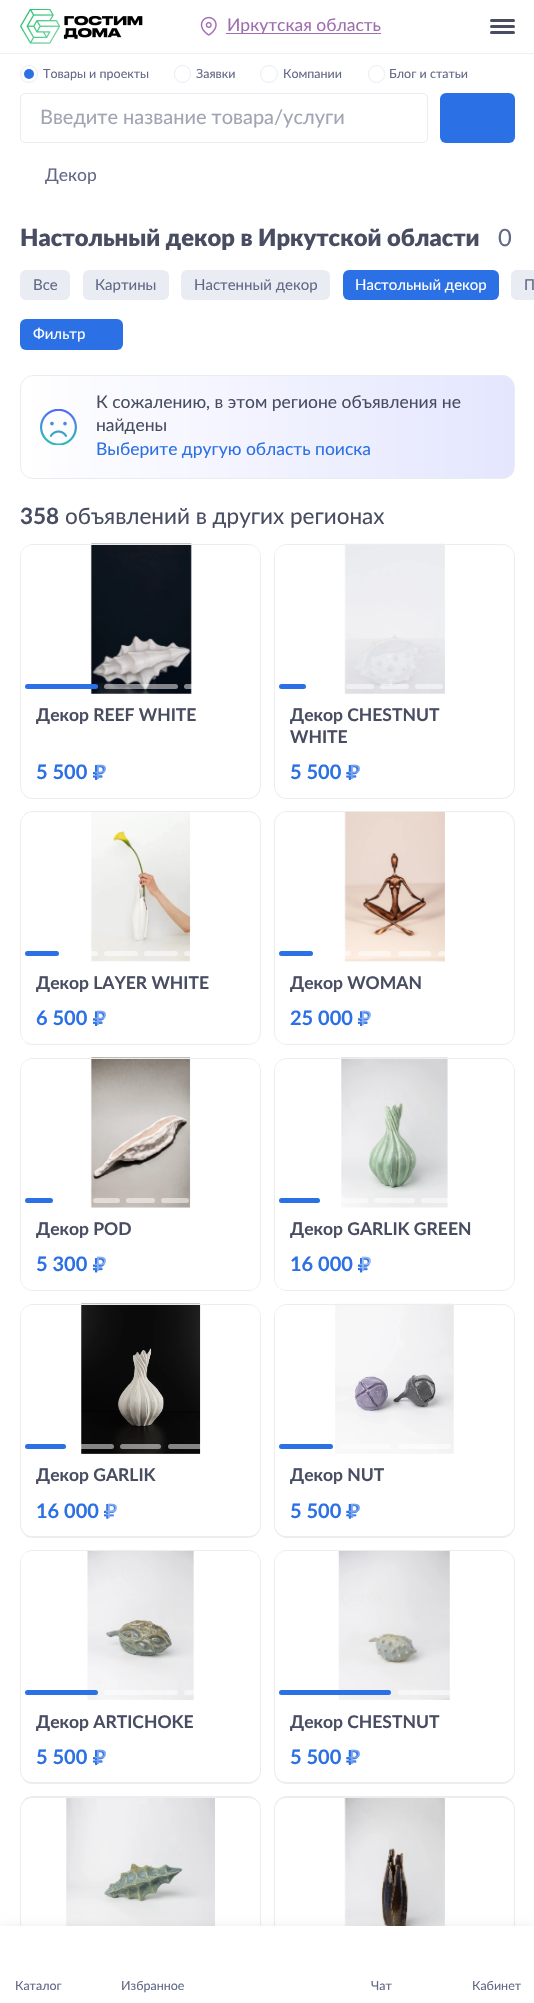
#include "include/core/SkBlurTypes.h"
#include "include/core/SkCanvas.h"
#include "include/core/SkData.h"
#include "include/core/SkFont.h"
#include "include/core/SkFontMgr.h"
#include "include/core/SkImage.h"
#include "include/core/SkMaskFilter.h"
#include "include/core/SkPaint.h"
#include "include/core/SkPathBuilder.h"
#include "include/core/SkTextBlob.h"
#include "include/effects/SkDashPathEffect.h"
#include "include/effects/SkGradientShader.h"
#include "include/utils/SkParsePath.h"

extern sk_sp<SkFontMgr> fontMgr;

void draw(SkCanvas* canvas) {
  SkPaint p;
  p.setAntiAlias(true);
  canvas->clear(SK_ColorWHITE);
  p.setColor(SkColorSetRGB(241, 241, 241));
  canvas->drawRect(SkRect::MakeLTRB(0, 53, 534, 54), p);
  canvas->drawImageRect(SkImages::DeferredFromEncodedData(SkData::MakeFromFileName("images/1.png")), SkRect::MakeLTRB(20, 9, 143, 44), SkSamplingOptions());
  canvas->drawImageRect(SkImages::DeferredFromEncodedData(SkData::MakeFromFileName("images/2.png")), SkRect::MakeLTRB(200, 16, 217, 36), SkSamplingOptions());
  p.setColor(SkColorSetRGB(159, 110, 175));
  canvas->drawRect(SkRect::MakeLTRB(226, 33, 381, 34), p);
  p.setColor(SkColorSetRGB(72, 77, 98));
  canvas->drawRoundRect(SkRect::MakeLTRB(490, 19, 515, 22), 1.5f, 1.5f, p);
  canvas->drawRoundRect(SkRect::MakeLTRB(490, 25, 515, 28), 1.5f, 1.5f, p);
  canvas->drawRoundRect(SkRect::MakeLTRB(490, 31, 515, 34), 1.5f, 1.5f, p);
  p.setStyle(SkPaint::kStroke_Style);
  p.setStrokeWidth(1);
  p.setColor(SkColorSetRGB(234, 236, 243));
  canvas->drawCircle(29, 74, 8.5f, p);
  p.setStyle(SkPaint::kFill_Style);
  p.setColor(SkColorSetRGB(43, 112, 228));
  canvas->drawCircle(29, 74, 5, p);
  p.setStyle(SkPaint::kStroke_Style);
  p.setColor(SkColorSetRGB(234, 236, 243));
  canvas->drawRoundRect(SkRect::MakeLTRB(174.5f, 65.5f, 190.5f, 82.5f), 8, 8, p);
  canvas->drawCircle(269, 74, 8.5f, p);
  canvas->drawRoundRect(SkRect::MakeLTRB(368.5f, 65.5f, 384.5f, 82.5f), 8, 8, p);
  canvas->drawRoundRect(SkRect::MakeLTRB(20.5f, 93.5f, 427.5f, 142.5f), 4.5f, 4.5f, p);
  p.setStyle(SkPaint::kFill_Style);
  p.setColor(SkColorSetRGB(43, 112, 228));
  canvas->drawRoundRect(SkRect::MakeLTRB(440, 93, 515, 143), 6, 6, p);
  p.setColor(SkColorSetRGB(234, 236, 243));
  canvas->drawRoundRect(SkRect::MakeLTRB(20, 270, 70, 300), 6, 6, p);
  canvas->drawRoundRect(SkRect::MakeLTRB(83, 270, 169, 300), 6, 6, p);
  canvas->drawRoundRect(SkRect::MakeLTRB(181, 270, 330, 300), 6, 6, p);
  p.setColor(SkColorSetRGB(43, 112, 228));
  canvas->drawRoundRect(SkRect::MakeLTRB(343, 270, 499, 300), 6, 6, p);
  p.setColor(SkColorSetRGB(234, 236, 243));
  canvas->drawPath(SkPathBuilder().moveTo(517, 270).lineTo(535, 270).lineTo(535, 300).lineTo(517, 300).cubicTo(513.5f, 300, 511, 297.5f, 511, 294).lineTo(511, 276).cubicTo(511, 272.5f, 513.5f, 270, 517, 270).close().detach(), p);
  p.setColor(SkColorSetRGB(43, 112, 228));
  canvas->drawRoundRect(SkRect::MakeLTRB(20, 319, 123, 350), 6, 6, p);
  canvas->save();
  canvas->clipPath(SkPathBuilder().moveTo(33, 375).lineTo(502, 375).cubicTo(509, 375, 515, 381, 515, 388).lineTo(515, 466).cubicTo(515, 473, 509, 479, 502, 479).lineTo(33, 479).cubicTo(26, 479, 20, 473, 20, 466).lineTo(20, 388).cubicTo(20, 381, 26, 375, 33, 375).close().detach(), true);
  {
    const SkColor colors[] = {SK_ColorWHITE, SkColorSetRGB(228, 230, 254)};
    const float stops[] = {0, 1};
    const SkPoint ends[] = {{21, 427}, {514, 427}};
    p.setShader(SkGradientShader::MakeLinear(ends, colors, stops, 2, SkTileMode::kClamp));
    p.setAlpha(255);
  }
  canvas->drawRect(SkRect::MakeLTRB(21, 375, 514, 479), p);
  canvas->restore();
  p.setStyle(SkPaint::kStroke_Style);
  p.setShader(nullptr);
  p.setColor(SkColorSetRGB(234, 236, 243));
  canvas->drawRoundRect(SkRect::MakeLTRB(20.5f, 375.5f, 514.5f, 478.5f), 12.5f, 12.5f, p);
  canvas->drawImageRect(SkImages::DeferredFromEncodedData(SkData::MakeFromFileName("images/3.png")), SkRect::MakeLTRB(40, 409, 77, 445), SkSamplingOptions());
  canvas->drawImageRect(SkImages::DeferredFromEncodedData(SkData::MakeFromFileName("images/4.png")), SkRect::MakeLTRB(90, 543, 192, 694), SkSamplingOptions());
  p.setStyle(SkPaint::kFill_Style);
  p.setColor(SkColorSetRGB(43, 112, 228));
  canvas->drawRoundRect(SkRect::MakeLTRB(25, 684, 98, 689), 2.5f, 2.5f, p);
  p.setColor(SkColorSetARGB(128, 255, 255, 255));
  canvas->drawRoundRect(SkRect::MakeLTRB(104, 684, 178, 689), 2.5f, 2.5f, p);
  canvas->drawRoundRect(SkRect::MakeLTRB(184, 684, 256, 689), 2.5f, 2.5f, p);
  p.setColor(SkColorSetRGB(237, 237, 237));
  canvas->drawPath(SkPathBuilder().moveTo(32, 545).cubicTo(26, 545, 21, 550, 21, 556).lineTo(21, 694).lineTo(20, 694).lineTo(20, 557).cubicTo(20, 550, 26, 544, 33, 544).lineTo(248, 544).cubicTo(255, 544, 261, 550, 261, 557).lineTo(261, 694).lineTo(260, 694).lineTo(260, 556).cubicTo(260, 550, 255, 545, 249, 545).close().detach(), p);
  canvas->drawPath(SkPathBuilder().moveTo(21, 694).lineTo(20, 694).lineTo(20, 786).cubicTo(20, 790, 22, 793, 24, 795).cubicTo(26, 798, 29, 799, 33, 799).lineTo(248, 799).cubicTo(255, 799, 261, 793, 261, 786).lineTo(261, 694).lineTo(260, 694).lineTo(260, 786).cubicTo(260, 792, 255, 798, 249, 798).lineTo(32, 798).cubicTo(26, 798, 21, 792, 21, 786).close().detach(), p);
  canvas->drawImageRect(SkImages::DeferredFromEncodedData(SkData::MakeFromFileName("images/5.png")), SkRect::MakeLTRB(93, 765, 105, 780), SkSamplingOptions());
  canvas->drawImageRect(SkImages::DeferredFromEncodedData(SkData::MakeFromFileName("images/6.png")), SkRect::MakeLTRB(344, 543, 445, 694), SkSamplingOptions());
  p.setColor(SkColorSetRGB(43, 112, 228));
  canvas->drawRoundRect(SkRect::MakeLTRB(279, 684, 306, 689), 2.5f, 2.5f, p);
  p.setColor(SkColorSetARGB(128, 255, 255, 255));
  canvas->drawRoundRect(SkRect::MakeLTRB(346, 684, 374, 689), 2.5f, 2.5f, p);
  canvas->drawRoundRect(SkRect::MakeLTRB(380, 684, 409, 689), 2.5f, 2.5f, p);
  canvas->drawRoundRect(SkRect::MakeLTRB(415, 684, 443, 689), 2.5f, 2.5f, p);
  p.setColor(SkColorSetRGB(237, 237, 237));
  canvas->drawPath(SkPathBuilder().moveTo(286, 545).cubicTo(280, 545, 275, 550, 275, 556).lineTo(275, 694).lineTo(274, 694).lineTo(274, 557).cubicTo(274, 550, 280, 544, 287, 544).lineTo(502, 544).cubicTo(509, 544, 515, 550, 515, 557).lineTo(515, 694).lineTo(514, 694).lineTo(514, 556).cubicTo(514, 550, 509, 545, 502, 545).close().detach(), p);
  canvas->drawPath(SkPathBuilder().moveTo(275, 694).lineTo(274, 694).lineTo(274, 786).cubicTo(274, 793, 280, 799, 287, 799).lineTo(502, 799).cubicTo(509, 799, 515, 793, 515, 786).lineTo(515, 694).lineTo(514, 694).lineTo(514, 786).cubicTo(514, 792, 509, 798, 502, 798).lineTo(286, 798).cubicTo(280, 798, 275, 792, 275, 786).close().detach(), p);
  canvas->drawImageRect(SkImages::DeferredFromEncodedData(SkData::MakeFromFileName("images/7.png")), SkRect::MakeLTRB(346, 765, 359, 780), SkSamplingOptions());
  canvas->drawPath(SkPathBuilder().moveTo(21, 961).lineTo(20, 961).lineTo(20, 1032).cubicTo(20, 1036, 22, 1039, 24, 1041).cubicTo(26, 1044, 29, 1045, 33, 1045).lineTo(248, 1045).cubicTo(255, 1045, 261, 1039, 261, 1032).lineTo(261, 961).lineTo(260, 961).lineTo(260, 1032).cubicTo(260, 1039, 255, 1044, 249, 1044).lineTo(32, 1044).cubicTo(26, 1044, 21, 1039, 21, 1032).close().detach(), p);
  canvas->drawImageRect(SkImages::DeferredFromEncodedData(SkData::MakeFromFileName("images/8.png")), SkRect::MakeLTRB(91, 812, 191, 962), SkSamplingOptions());
  p.setColor(SkColorSetRGB(43, 112, 228));
  canvas->drawRoundRect(SkRect::MakeLTRB(25, 951, 59, 956), 2.5f, 2.5f, p);
  p.setColor(SkColorSetARGB(128, 255, 255, 255));
  canvas->drawRoundRect(SkRect::MakeLTRB(65, 951, 98, 956), 2.5f, 2.5f, p);
  canvas->drawRoundRect(SkRect::MakeLTRB(104, 951, 138, 956), 2.5f, 2.5f, p);
  canvas->drawRoundRect(SkRect::MakeLTRB(144, 951, 178, 956), 2.5f, 2.5f, p);
  canvas->drawRoundRect(SkRect::MakeLTRB(184, 951, 216, 956), 2.5f, 2.5f, p);
  p.setColor(SkColorSetRGB(237, 237, 237));
  canvas->drawPath(SkPathBuilder().moveTo(32, 812).cubicTo(26, 812, 21, 818, 21, 824).lineTo(21, 961).lineTo(20, 961).lineTo(20, 824).cubicTo(20, 820, 22, 817, 24, 815).cubicTo(26, 812, 29, 811, 33, 811).lineTo(248, 811).cubicTo(255, 811, 261, 817, 261, 824).lineTo(261, 961).lineTo(260, 961).lineTo(260, 824).cubicTo(260, 818, 255, 812, 249, 812).close().detach(), p);
  canvas->drawImageRect(SkImages::DeferredFromEncodedData(SkData::MakeFromFileName("images/9.png")), SkRect::MakeLTRB(93, 1011, 105, 1026), SkSamplingOptions());
  canvas->drawPath(SkPathBuilder().moveTo(275, 961).lineTo(274, 961).lineTo(274, 1032).cubicTo(274, 1039, 280, 1045, 287, 1045).lineTo(502, 1045).cubicTo(509, 1045, 515, 1039, 515, 1032).lineTo(515, 961).lineTo(514, 961).lineTo(514, 1032).cubicTo(514, 1039, 509, 1044, 502, 1044).lineTo(286, 1044).cubicTo(280, 1044, 275, 1039, 275, 1032).close().detach(), p);
  canvas->drawImageRect(SkImages::DeferredFromEncodedData(SkData::MakeFromFileName("images/10.png")), SkRect::MakeLTRB(344, 812, 445, 962), SkSamplingOptions());
  p.setColor(SkColorSetRGB(43, 112, 228));
  canvas->drawRoundRect(SkRect::MakeLTRB(279, 951, 313, 956), 2.5f, 2.5f, p);
  p.setColor(SkColorSetARGB(128, 255, 255, 255));
  canvas->drawRoundRect(SkRect::MakeLTRB(319, 951, 351, 956), 2.5f, 2.5f, p);
  canvas->drawRoundRect(SkRect::MakeLTRB(358, 951, 391, 956), 2.5f, 2.5f, p);
  canvas->drawRoundRect(SkRect::MakeLTRB(398, 951, 431, 956), 2.5f, 2.5f, p);
  canvas->drawRoundRect(SkRect::MakeLTRB(438, 951, 470, 956), 2.5f, 2.5f, p);
  p.setColor(SkColorSetRGB(237, 237, 237));
  canvas->drawPath(SkPathBuilder().moveTo(286, 812).cubicTo(280, 812, 275, 818, 275, 824).lineTo(275, 961).lineTo(274, 961).lineTo(274, 824).cubicTo(274, 817, 280, 811, 287, 811).lineTo(502, 811).cubicTo(509, 811, 515, 817, 515, 824).lineTo(515, 961).lineTo(514, 961).lineTo(514, 824).cubicTo(514, 818, 509, 812, 502, 812).close().detach(), p);
  canvas->drawImageRect(SkImages::DeferredFromEncodedData(SkData::MakeFromFileName("images/9.png")), SkRect::MakeLTRB(358, 1011, 370, 1026), SkSamplingOptions());
  canvas->drawImageRect(SkImages::DeferredFromEncodedData(SkData::MakeFromFileName("images/11.png")), SkRect::MakeLTRB(90, 1057, 191, 1208), SkSamplingOptions());
  p.setColor(SkColorSetRGB(43, 112, 228));
  canvas->drawRoundRect(SkRect::MakeLTRB(25, 1198, 53, 1203), 2.5f, 2.5f, p);
  p.setColor(SkColorSetARGB(128, 255, 255, 255));
  canvas->drawRoundRect(SkRect::MakeLTRB(93, 1198, 120, 1203), 2.5f, 2.5f, p);
  canvas->drawRoundRect(SkRect::MakeLTRB(126, 1198, 155, 1203), 2.5f, 2.5f, p);
  canvas->drawRoundRect(SkRect::MakeLTRB(161, 1198, 189, 1203), 2.5f, 2.5f, p);
  p.setColor(SkColorSetRGB(237, 237, 237));
  canvas->drawPath(SkPathBuilder().moveTo(32, 1059).cubicTo(26, 1059, 21, 1064, 21, 1070).lineTo(21, 1208).lineTo(20, 1208).lineTo(20, 1071).cubicTo(20, 1064, 26, 1058, 33, 1058).lineTo(248, 1058).cubicTo(255, 1058, 261, 1064, 261, 1071).lineTo(261, 1208).lineTo(260, 1208).lineTo(260, 1070).cubicTo(260, 1064, 255, 1059, 249, 1059).close().detach(), p);
  canvas->drawPath(SkPathBuilder().moveTo(21, 1208).lineTo(20, 1208).lineTo(20, 1278).cubicTo(20, 1285, 26, 1291, 33, 1291).lineTo(248, 1291).cubicTo(255, 1291, 261, 1285, 261, 1278).lineTo(261, 1208).lineTo(260, 1208).lineTo(260, 1279).cubicTo(260, 1285, 255, 1290, 249, 1290).lineTo(32, 1290).cubicTo(26, 1290, 21, 1285, 21, 1279).close().detach(), p);
  canvas->drawImageRect(SkImages::DeferredFromEncodedData(SkData::MakeFromFileName("images/12.png")), SkRect::MakeLTRB(93, 1258, 105, 1273), SkSamplingOptions());
  canvas->drawImageRect(SkImages::DeferredFromEncodedData(SkData::MakeFromFileName("images/13.png")), SkRect::MakeLTRB(341, 1057, 448, 1208), SkSamplingOptions());
  p.setColor(SkColorSetRGB(43, 112, 228));
  canvas->drawRoundRect(SkRect::MakeLTRB(279, 1198, 320, 1203), 2.5f, 2.5f, p);
  p.setColor(SkColorSetARGB(128, 255, 255, 255));
  canvas->drawRoundRect(SkRect::MakeLTRB(326, 1198, 368, 1203), 2.5f, 2.5f, p);
  canvas->drawRoundRect(SkRect::MakeLTRB(374, 1198, 415, 1203), 2.5f, 2.5f, p);
  canvas->drawRoundRect(SkRect::MakeLTRB(421, 1198, 463, 1203), 2.5f, 2.5f, p);
  p.setColor(SkColorSetRGB(237, 237, 237));
  canvas->drawPath(SkPathBuilder().moveTo(286, 1059).cubicTo(280, 1059, 275, 1064, 275, 1070).lineTo(275, 1208).lineTo(274, 1208).lineTo(274, 1071).cubicTo(274, 1064, 280, 1058, 287, 1058).lineTo(502, 1058).cubicTo(509, 1058, 515, 1064, 515, 1071).lineTo(515, 1208).lineTo(514, 1208).lineTo(514, 1070).cubicTo(514, 1064, 509, 1059, 502, 1059).close().detach(), p);
  canvas->drawPath(SkPathBuilder().moveTo(275, 1208).lineTo(274, 1208).lineTo(274, 1278).cubicTo(274, 1285, 280, 1291, 287, 1291).lineTo(502, 1291).cubicTo(509, 1291, 515, 1285, 515, 1278).lineTo(515, 1208).lineTo(514, 1208).lineTo(514, 1279).cubicTo(514, 1285, 509, 1290, 502, 1290).lineTo(286, 1290).cubicTo(280, 1290, 275, 1285, 275, 1279).close().detach(), p);
  canvas->drawImageRect(SkImages::DeferredFromEncodedData(SkData::MakeFromFileName("images/12.png")), SkRect::MakeLTRB(358, 1258, 370, 1273), SkSamplingOptions());
  canvas->drawImageRect(SkImages::DeferredFromEncodedData(SkData::MakeFromFileName("images/14.png")), SkRect::MakeLTRB(81, 1303, 201, 1454), SkSamplingOptions());
  p.setColor(SkColorSetRGB(43, 112, 228));
  canvas->drawRoundRect(SkRect::MakeLTRB(25, 1444, 66, 1449), 2.5f, 2.5f, p);
  p.setColor(SkColorSetARGB(128, 255, 255, 255));
  canvas->drawRoundRect(SkRect::MakeLTRB(73, 1444, 114, 1449), 2.5f, 2.5f, p);
  canvas->drawRoundRect(SkRect::MakeLTRB(120, 1444, 161, 1449), 2.5f, 2.5f, p);
  canvas->drawRoundRect(SkRect::MakeLTRB(168, 1444, 209, 1449), 2.5f, 2.5f, p);
  p.setColor(SkColorSetRGB(237, 237, 237));
  canvas->drawPath(SkPathBuilder().moveTo(32, 1305).cubicTo(26, 1305, 21, 1310, 21, 1316).lineTo(21, 1454).lineTo(20, 1454).lineTo(20, 1317).cubicTo(20, 1310, 26, 1304, 33, 1304).lineTo(248, 1304).cubicTo(255, 1304, 261, 1310, 261, 1317).lineTo(261, 1454).lineTo(260, 1454).lineTo(260, 1316).cubicTo(260, 1310, 255, 1305, 249, 1305).close().detach(), p);
  canvas->drawPath(SkPathBuilder().moveTo(21, 1454).lineTo(20, 1454).lineTo(20, 1525).cubicTo(20, 1529, 22, 1532, 24, 1534).cubicTo(26, 1537, 29, 1538, 33, 1538).lineTo(248, 1538).cubicTo(255, 1538, 261, 1532, 261, 1525).lineTo(261, 1454).lineTo(260, 1454).lineTo(260, 1525).cubicTo(260, 1531, 255, 1536, 249, 1536).lineTo(32, 1536).cubicTo(26, 1536, 21, 1531, 21, 1525).close().detach(), p);
  canvas->drawImageRect(SkImages::DeferredFromEncodedData(SkData::MakeFromFileName("images/15.png")), SkRect::MakeLTRB(104, 1504, 116, 1519), SkSamplingOptions());
  canvas->drawImageRect(SkImages::DeferredFromEncodedData(SkData::MakeFromFileName("images/16.png")), SkRect::MakeLTRB(335, 1303, 454, 1454), SkSamplingOptions());
  p.setColor(SkColorSetRGB(43, 112, 228));
  canvas->drawRoundRect(SkRect::MakeLTRB(279, 1444, 333, 1449), 2.5f, 2.5f, p);
  p.setColor(SkColorSetRGB(251, 251, 251));
  canvas->drawRoundRect(SkRect::MakeLTRB(339, 1444, 391, 1449), 2.5f, 2.5f, p);
  p.setColor(SkColorSetARGB(128, 255, 255, 255));
  canvas->drawRoundRect(SkRect::MakeLTRB(398, 1444, 451, 1449), 2.5f, 2.5f, p);
  p.setColor(SkColorSetRGB(237, 237, 237));
  canvas->drawPath(SkPathBuilder().moveTo(286, 1305).cubicTo(280, 1305, 275, 1310, 275, 1316).lineTo(275, 1454).lineTo(274, 1454).lineTo(274, 1317).cubicTo(274, 1310, 280, 1304, 287, 1304).lineTo(502, 1304).cubicTo(509, 1304, 515, 1310, 515, 1317).lineTo(515, 1454).lineTo(514, 1454).lineTo(514, 1316).cubicTo(514, 1310, 509, 1305, 502, 1305).close().detach(), p);
  canvas->drawPath(SkPathBuilder().moveTo(275, 1454).lineTo(274, 1454).lineTo(274, 1525).cubicTo(274, 1532, 280, 1538, 287, 1538).lineTo(502, 1538).cubicTo(509, 1538, 515, 1532, 515, 1525).lineTo(515, 1454).lineTo(514, 1454).lineTo(514, 1525).cubicTo(514, 1531, 509, 1536, 502, 1536).lineTo(286, 1536).cubicTo(280, 1536, 275, 1531, 275, 1525).close().detach(), p);
  canvas->drawImageRect(SkImages::DeferredFromEncodedData(SkData::MakeFromFileName("images/17.png")), SkRect::MakeLTRB(346, 1504, 359, 1519), SkSamplingOptions());
  canvas->drawImageRect(SkImages::DeferredFromEncodedData(SkData::MakeFromFileName("images/18.png")), SkRect::MakeLTRB(87, 1551, 194, 1700), SkSamplingOptions());
  p.setColor(SkColorSetRGB(43, 112, 228));
  canvas->drawRoundRect(SkRect::MakeLTRB(25, 1690, 98, 1695), 2.5f, 2.5f, p);
  p.setColor(SkColorSetARGB(128, 255, 255, 255));
  canvas->drawRoundRect(SkRect::MakeLTRB(104, 1690, 178, 1695), 2.5f, 2.5f, p);
  canvas->drawRoundRect(SkRect::MakeLTRB(184, 1690, 256, 1695), 2.5f, 2.5f, p);
  p.setColor(SkColorSetRGB(237, 237, 237));
  canvas->drawPath(SkPathBuilder().moveTo(32, 1551).cubicTo(26, 1551, 21, 1556, 21, 1562).lineTo(21, 1700).lineTo(20, 1700).lineTo(20, 1563).cubicTo(20, 1556, 26, 1550, 33, 1550).lineTo(248, 1550).cubicTo(255, 1550, 261, 1556, 261, 1563).lineTo(261, 1700).lineTo(260, 1700).lineTo(260, 1562).cubicTo(260, 1556, 255, 1551, 249, 1551).close().detach(), p);
  canvas->drawPath(SkPathBuilder().moveTo(21, 1700).lineTo(20, 1700).lineTo(20, 1771).cubicTo(20, 1775, 22, 1778, 24, 1780).cubicTo(26, 1783, 29, 1784, 33, 1784).lineTo(248, 1784).cubicTo(255, 1784, 261, 1778, 261, 1771).lineTo(261, 1700).lineTo(260, 1700).lineTo(260, 1771).cubicTo(260, 1777, 255, 1782, 249, 1782).lineTo(32, 1782).cubicTo(26, 1782, 21, 1777, 21, 1771).close().detach(), p);
  canvas->drawImageRect(SkImages::DeferredFromEncodedData(SkData::MakeFromFileName("images/5.png")), SkRect::MakeLTRB(93, 1750, 105, 1765), SkSamplingOptions());
  canvas->drawImageRect(SkImages::DeferredFromEncodedData(SkData::MakeFromFileName("images/19.png")), SkRect::MakeLTRB(338, 1551, 450, 1700), SkSamplingOptions());
  p.setColor(SkColorSetRGB(43, 112, 228));
  canvas->drawRoundRect(SkRect::MakeLTRB(279, 1690, 391, 1695), 2.5f, 2.5f, p);
  p.setColor(SkColorSetARGB(128, 255, 255, 255));
  canvas->drawRoundRect(SkRect::MakeLTRB(398, 1690, 510, 1695), 2.5f, 2.5f, p);
  p.setColor(SkColorSetRGB(237, 237, 237));
  canvas->drawPath(SkPathBuilder().moveTo(286, 1551).cubicTo(280, 1551, 275, 1556, 275, 1562).lineTo(275, 1700).lineTo(274, 1700).lineTo(274, 1563).cubicTo(274, 1556, 280, 1550, 287, 1550).lineTo(502, 1550).cubicTo(506, 1550, 509, 1552, 511, 1554).cubicTo(514, 1556, 515, 1559, 515, 1563).lineTo(515, 1700).lineTo(514, 1700).lineTo(514, 1562).cubicTo(514, 1556, 509, 1551, 502, 1551).close().detach(), p);
  canvas->drawPath(SkPathBuilder().moveTo(275, 1700).lineTo(274, 1700).lineTo(274, 1771).cubicTo(274, 1778, 280, 1784, 287, 1784).lineTo(502, 1784).cubicTo(509, 1784, 515, 1778, 515, 1771).lineTo(515, 1700).lineTo(514, 1700).lineTo(514, 1771).cubicTo(514, 1777, 509, 1782, 502, 1782).lineTo(286, 1782).cubicTo(280, 1782, 275, 1777, 275, 1771).close().detach(), p);
  canvas->drawImageRect(SkImages::DeferredFromEncodedData(SkData::MakeFromFileName("images/7.png")), SkRect::MakeLTRB(346, 1750, 359, 1765), SkSamplingOptions());
  canvas->drawImageRect(SkImages::DeferredFromEncodedData(SkData::MakeFromFileName("images/20.png")), SkRect::MakeLTRB(66, 1798, 215, 1926), SkSamplingOptions());
  canvas->drawPath(SkPathBuilder().moveTo(32, 1798).lineTo(249, 1798).cubicTo(255, 1798, 260, 1803, 260, 1809).lineTo(260, 1946).lineTo(261, 1946).lineTo(261, 1809).cubicTo(261, 1802, 255, 1796, 248, 1796).lineTo(33, 1796).cubicTo(29, 1796, 26, 1797, 24, 1800).cubicTo(22, 1802, 20, 1805, 20, 1809).lineTo(20, 1946).lineTo(21, 1946).lineTo(21, 1809).cubicTo(21, 1803, 26, 1798, 32, 1798).close().detach(), p);
  canvas->drawImageRect(SkImages::DeferredFromEncodedData(SkData::MakeFromFileName("images/21.png")), SkRect::MakeLTRB(344, 1798, 445, 1926), SkSamplingOptions());
  canvas->drawPath(SkPathBuilder().moveTo(286, 1798).cubicTo(280, 1798, 275, 1803, 275, 1809).lineTo(275, 1946).lineTo(274, 1946).lineTo(274, 1809).cubicTo(274, 1802, 280, 1796, 287, 1796).lineTo(502, 1796).cubicTo(509, 1796, 515, 1802, 515, 1809).lineTo(515, 1946).lineTo(514, 1946).lineTo(514, 1809).cubicTo(514, 1803, 509, 1798, 502, 1798).close().detach(), p);
  p.setColor(SkColorSetARGB(18, 0, 0, 0));
  p.setMaskFilter(SkMaskFilter::MakeBlur(kNormal_SkBlurStyle, 5));
  canvas->drawRect(SkRect::MakeLTRB(0, 1926, 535, 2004), p);
  p.setMaskFilter(nullptr);
  p.setColor(SK_ColorWHITE);
  canvas->drawRect(SkRect::MakeLTRB(0, 1926, 534, 2003), p);
  SkFont font1(fontMgr->matchFamilyStyle("Lato", SkFontStyle::Normal()), 17.5f);
  font1.setSubpixel(true);
  p.setColor(SkColorSetRGB(159, 110, 175));
  canvas->drawString("Иркутская область", 227, 31, font1, p);
  SkFont font2(fontMgr->matchFamilyStyle("Lato", SkFontStyle::Normal()), 12.5f);
  font2.setSubpixel(true);
  p.setColor(SkColorSetRGB(98, 105, 135));
  canvas->drawString("Товары и проекты", 43, 78, font2, p);
  canvas->drawString("Заявки", 196, 78, font2, p);
  canvas->drawString("Компании", 283, 78, font2, p);
  canvas->drawString("Блог и статьи", 389, 78, font2, p);
  SkFont font3(fontMgr->matchFamilyStyle("Lato", SkFontStyle::Normal()), 20);
  font3.setSubpixel(true);
  p.setColor(SkColorSetRGB(161, 164, 178));
  canvas->drawString("Введите название товара/услуги", 40, 124, font3, p);
  p.setColor(SkColorSetRGB(98, 105, 135));
  canvas->drawString("Декор", 45, 181, font1, p);
  SkFont font4(fontMgr->matchFamilyStyle("Lato", SkFontStyle(900, SkFontStyle::kNormal_Width, SkFontStyle::kUpright_Slant)), 23.75f);
  font4.setSubpixel(true);
  p.setColor(SkColorSetRGB(72, 77, 98));
  canvas->drawString("Настольный декор в Иркутской области", 20, 246, font4, p);
  SkFont font5(fontMgr->matchFamilyStyle("Lato", SkFontStyle::Normal()), 23.75f);
  font5.setSubpixel(true);
  p.setColor(SkColorSetRGB(98, 105, 135));
  canvas->drawString("0", 498, 246, font5, p);
  SkFont font6(fontMgr->matchFamilyStyle("Lato", SkFontStyle::Normal()), 15);
  font6.setSubpixel(true);
  canvas->drawString("Все", 33, 290, font6, p);
  canvas->drawString("Картины", 95, 290, font6, p);
  canvas->drawString("Настенный декор", 194, 290, font6, p);
  p.setColor(SK_ColorWHITE);
  canvas->drawString("Настольный декор", 355, 290, font6, p);
  p.setColor(SkColorSetRGB(98, 105, 135));
  canvas->drawString("П", 524, 290, font6, p);
  p.setColor(SK_ColorWHITE);
  canvas->drawString("Фильтр", 33, 339, font6, p);
  p.setColor(SkColorSetRGB(72, 77, 98));
  canvas->drawString("К сожалению, в этом регионе объявления не", 96, 408, font1, p);
  canvas->drawString("найдены", 96, 431, font1, p);
  p.setColor(SkColorSetRGB(43, 112, 228));
  canvas->drawString("Выберите другую область поиска", 96, 455, font1, p);
  SkFont font7(fontMgr->matchFamilyStyle("Lato", SkFontStyle::Bold()), 22.5f);
  font7.setSubpixel(true);
  p.setColor(SkColorSetRGB(72, 77, 98));
  canvas->drawString("358", 20, 524, font7, p);
  SkFont font8(fontMgr->matchFamilyStyle("Lato", SkFontStyle::Normal()), 22.5f);
  font8.setSubpixel(true);
  canvas->drawString("объявлений в других регионах", 65, 524, font8, p);
  SkFont font9(fontMgr->matchFamilyStyle("Lato", SkFontStyle::Bold()), 17.5f);
  font9.setSubpixel(true);
  canvas->drawString("Декор REEF WHITE", 36, 721, font9, p);
  SkFont font10(fontMgr->matchFamilyStyle("Lato", SkFontStyle::Bold()), 20);
  font10.setSubpixel(true);
  p.setColor(SkColorSetRGB(43, 112, 228));
  canvas->drawString("5 500", 36, 779, font10, p);
  SkFont font11(fontMgr->matchFamilyStyle("Noto Sans", SkFontStyle::Normal()), 20);
  font11.setSubpixel(true);
  p.setColor(SkColorSetRGB(118, 162, 238));
  canvas->drawString("₽", 95, 779, font11, p);
  p.setColor(SkColorSetRGB(72, 77, 98));
  canvas->drawString("Декор CHESTNUT", 290, 721, font9, p);
  canvas->drawString("WHITE", 290, 743, font9, p);
  p.setColor(SkColorSetRGB(43, 112, 228));
  canvas->drawString("5 500", 290, 779, font10, p);
  p.setColor(SkColorSetRGB(118, 162, 238));
  canvas->drawString("₽", 349, 779, font11, p);
  p.setColor(SkColorSetRGB(72, 77, 98));
  canvas->drawString("Декор LAYER WHITE", 36, 989, font9, p);
  p.setColor(SkColorSetRGB(43, 112, 228));
  canvas->drawString("6 500", 36, 1025, font10, p);
  p.setColor(SkColorSetRGB(125, 167, 238));
  canvas->drawString("₽", 95, 1025, font11, p);
  p.setColor(SkColorSetRGB(72, 77, 98));
  canvas->drawString("Декор WOMAN", 290, 989, font9, p);
  p.setColor(SkColorSetRGB(43, 112, 228));
  canvas->drawString("25 000", 290, 1025, font10, p);
  p.setColor(SkColorSetRGB(136, 175, 240));
  canvas->drawString("₽", 360, 1025, font11, p);
  p.setColor(SkColorSetRGB(72, 77, 98));
  canvas->drawString("Декор POD", 36, 1235, font9, p);
  p.setColor(SkColorSetRGB(43, 112, 228));
  canvas->drawString("5 300", 36, 1271, font10, p);
  p.setColor(SkColorSetRGB(136, 175, 240));
  canvas->drawString("₽", 95, 1271, font11, p);
  p.setColor(SkColorSetRGB(72, 77, 98));
  canvas->drawString("Декор GARLIK GREEN", 290, 1235, font9, p);
  p.setColor(SkColorSetRGB(43, 112, 228));
  canvas->drawString("16 000", 290, 1271, font10, p);
  p.setColor(SkColorSetRGB(149, 183, 241));
  canvas->drawString("₽", 360, 1271, font11, p);
  p.setColor(SkColorSetRGB(72, 77, 98));
  canvas->drawString("Декор GARLIK", 36, 1481, font9, p);
  p.setColor(SkColorSetRGB(43, 112, 228));
  canvas->drawString("16 000", 36, 1518, font10, p);
  p.setColor(SkColorSetRGB(136, 175, 240));
  canvas->drawString("₽", 106, 1518, font11, p);
  p.setColor(SkColorSetRGB(72, 77, 98));
  canvas->drawString("Декор NUT", 290, 1481, font9, p);
  p.setColor(SkColorSetRGB(43, 112, 228));
  canvas->drawString("5 500", 290, 1518, font10, p);
  p.setColor(SkColorSetRGB(118, 162, 238));
  canvas->drawString("₽", 349, 1518, font11, p);
  p.setColor(SkColorSetRGB(72, 77, 98));
  canvas->drawString("Декор ARTICHOKE", 36, 1728, font9, p);
  p.setColor(SkColorSetRGB(43, 112, 228));
  canvas->drawString("5 500", 36, 1764, font10, p);
  p.setColor(SkColorSetRGB(118, 162, 238));
  canvas->drawString("₽", 95, 1764, font11, p);
  p.setColor(SkColorSetRGB(72, 77, 98));
  canvas->drawString("Декор CHESTNUT", 290, 1728, font9, p);
  p.setColor(SkColorSetRGB(43, 112, 228));
  canvas->drawString("5 500", 290, 1764, font10, p);
  p.setColor(SkColorSetRGB(118, 162, 238));
  canvas->drawString("₽", 349, 1764, font11, p);
  p.setColor(SkColorSetRGB(98, 105, 135));
  canvas->drawString("Каталог", 15, 1990, font2, p);
  canvas->drawString("Избранное", 121, 1990, font2, p);
  canvas->drawString("Чат", 371, 1990, font2, p);
  canvas->drawString("Кабинет", 472, 1990, font2, p);
}
